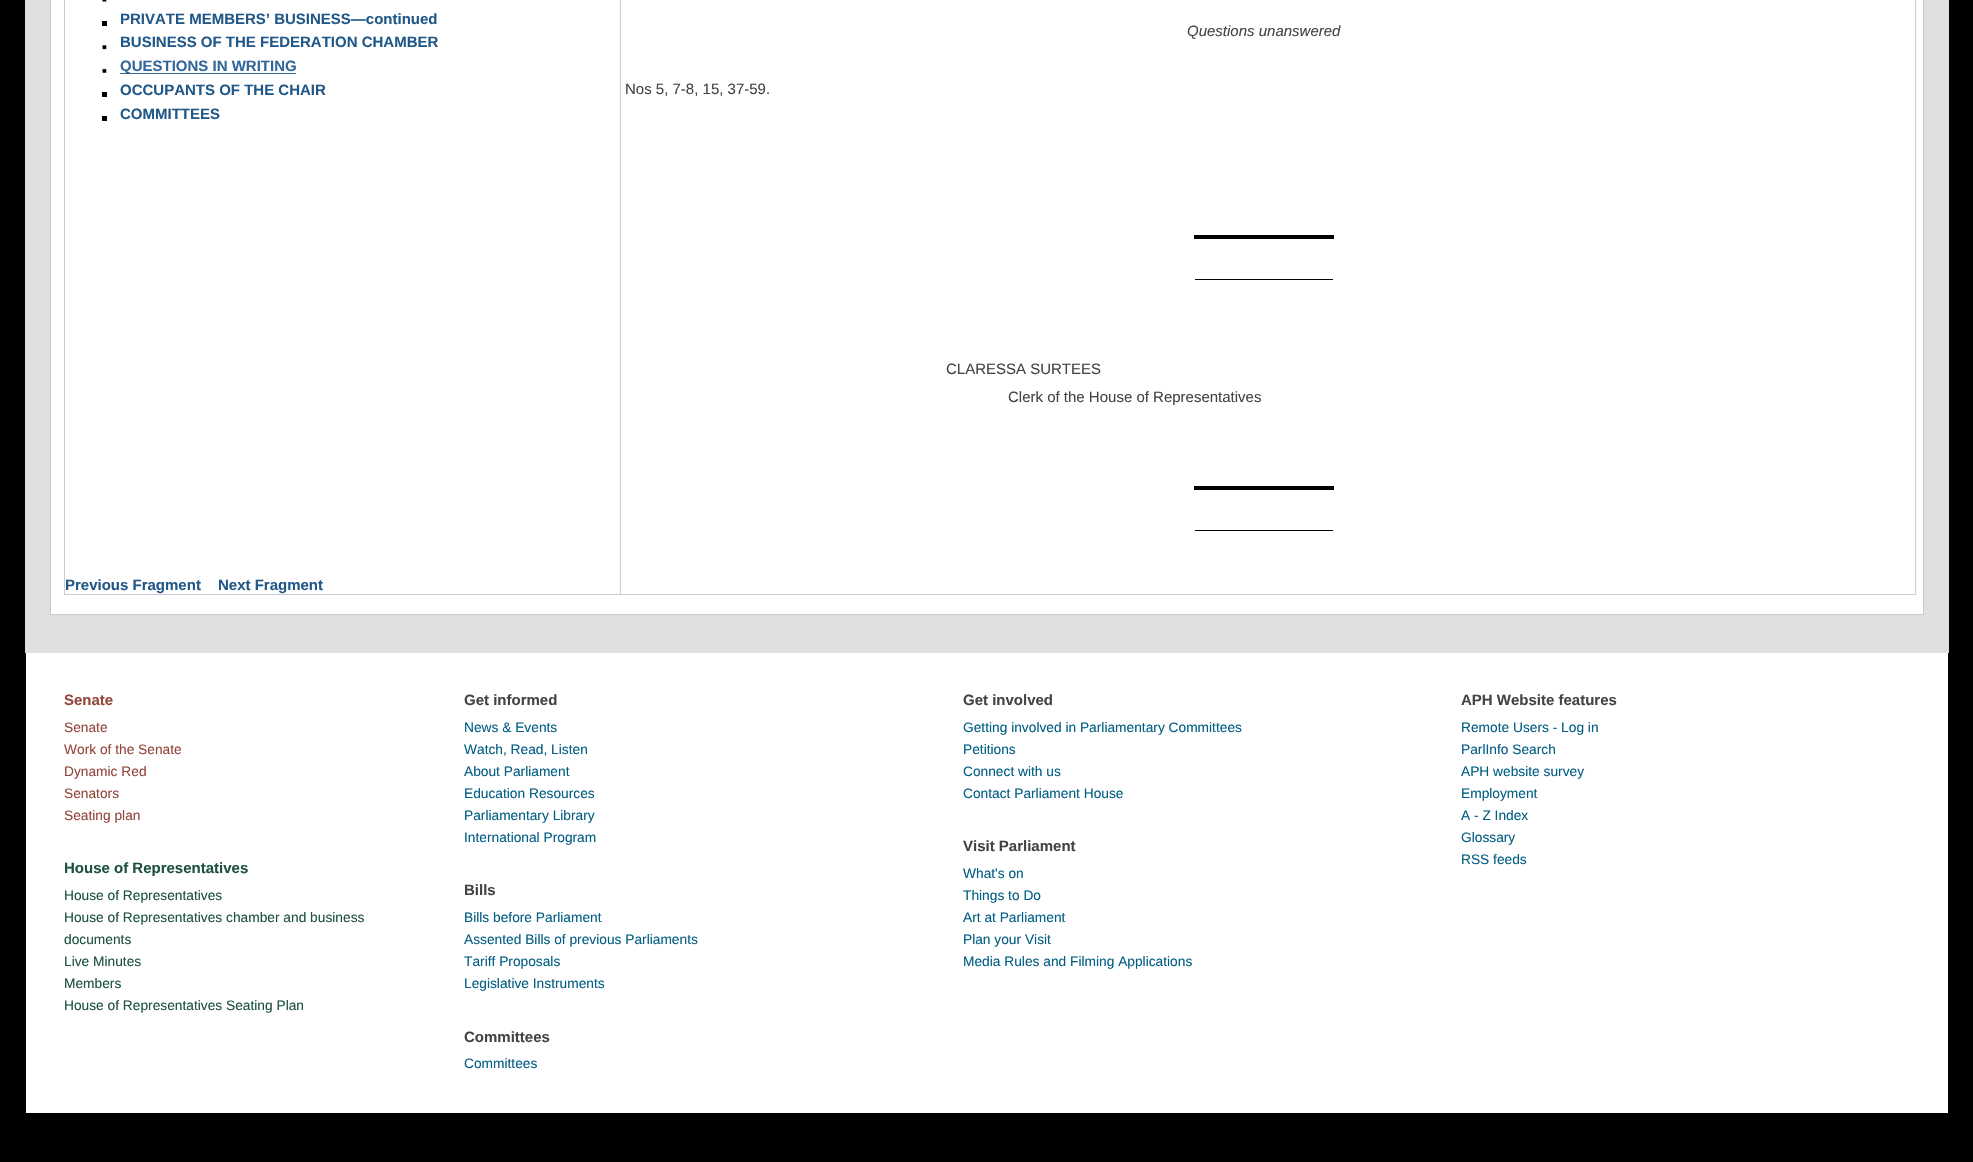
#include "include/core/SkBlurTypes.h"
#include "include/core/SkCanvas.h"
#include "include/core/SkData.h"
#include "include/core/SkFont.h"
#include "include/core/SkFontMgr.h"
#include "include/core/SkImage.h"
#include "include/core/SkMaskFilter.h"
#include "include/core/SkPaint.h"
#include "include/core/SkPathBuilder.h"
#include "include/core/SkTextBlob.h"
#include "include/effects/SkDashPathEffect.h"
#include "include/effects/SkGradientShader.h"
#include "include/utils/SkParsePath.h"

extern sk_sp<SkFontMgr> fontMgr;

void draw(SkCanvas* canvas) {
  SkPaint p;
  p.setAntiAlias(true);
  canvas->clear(SK_ColorBLACK);
  p.setColor(SkColorSetRGB(223, 223, 223));
  canvas->drawRect(SkRect::MakeLTRB(25, 0, 1949, 653), p);
  p.setColor(SK_ColorWHITE);
  canvas->drawRect(SkRect::MakeLTRB(50.5f, -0.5f, 1923.5f, 614.5f), p);
  p.setStyle(SkPaint::kStroke_Style);
  p.setStrokeWidth(1);
  p.setColor(SkColorSetRGB(205, 204, 212));
  canvas->drawRect(SkRect::MakeLTRB(50.5f, -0.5f, 1923.5f, 614.5f), p);
  p.setColor(SkColorSetRGB(204, 204, 212));
  canvas->drawRect(SkRect::MakeLTRB(64.5f, -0.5f, 1915.5f, 594.5f), p);
  canvas->drawImageRect(SkImages::DeferredFromEncodedData(SkData::MakeFromFileName("images/1.png")), SkRect::MakeLTRB(102, 0, 107, 2), SkSamplingOptions());
  p.setStyle(SkPaint::kFill_Style);
  p.setColor(SK_ColorBLACK);
  canvas->drawRect(SkRect::MakeLTRB(102, 21, 107, 26), p);
  canvas->drawImageRect(SkImages::DeferredFromEncodedData(SkData::MakeFromFileName("images/2.png")), SkRect::MakeLTRB(102, 45, 107, 50), SkSamplingOptions());
  canvas->drawImageRect(SkImages::DeferredFromEncodedData(SkData::MakeFromFileName("images/3.png")), SkRect::MakeLTRB(102, 68, 107, 73), SkSamplingOptions());
  p.setColor(SkColorSetRGB(51, 102, 153));
  canvas->drawRect(SkRect::MakeLTRB(120, 73, 296, 74), p);
  p.setColor(SK_ColorBLACK);
  canvas->drawRect(SkRect::MakeLTRB(102, 92, 107, 97), p);
  canvas->drawRect(SkRect::MakeLTRB(102, 116, 107, 121), p);
  canvas->drawRect(SkRect::MakeLTRB(1195, 279, 1333, 280), p);
  canvas->drawRect(SkRect::MakeLTRB(1194, 235, 1334, 239), p);
  canvas->drawRect(SkRect::MakeLTRB(1195, 530, 1333, 531), p);
  canvas->drawRect(SkRect::MakeLTRB(1194, 486, 1334, 490), p);
  p.setColor(SkColorSetRGB(204, 204, 212));
  canvas->drawRect(SkRect::MakeLTRB(620, 0, 621, 594), p);
  p.setColor(SK_ColorWHITE);
  canvas->drawRect(SkRect::MakeLTRB(26, 653, 1948, 1113), p);
  SkFont font1(fontMgr->matchFamilyStyle("Liberation Sans", SkFontStyle::Bold()), 15);
  font1.setSubpixel(true);
  p.setColor(SkColorSetRGB(33, 88, 136));
  canvas->drawString("PRIVATE MEMBERS’ BUSINESS—continued", 120, 24, font1, p);
  canvas->drawString("BUSINESS OF THE FEDERATION CHAMBER", 120, 47, font1, p);
  p.setColor(SkColorSetRGB(51, 102, 153));
  canvas->drawString("QUESTIONS IN WRITING", 120, 71, font1, p);
  p.setColor(SkColorSetRGB(33, 88, 136));
  canvas->drawString("OCCUPANTS OF THE CHAIR", 120, 95, font1, p);
  canvas->drawString("COMMITTEES", 120, 119, font1, p);
  SkFont font2(fontMgr->matchFamilyStyle("Liberation Sans", SkFontStyle::Italic()), 15);
  font2.setSubpixel(true);
  p.setColor(SkColorSetRGB(68, 68, 68));
  canvas->drawString("Questions unanswered", 1187, 36, font2, p);
  SkFont font3(fontMgr->matchFamilyStyle("Liberation Sans", SkFontStyle::Normal()), 15);
  font3.setSubpixel(true);
  canvas->drawString("Nos 5, 7-8, 15, 37-59.", 625, 94, font3, p);
  canvas->drawString("CLARESSA SURTEES", 946, 374, font3, p);
  canvas->drawString("Clerk of the House of Representatives", 1008, 402, font3, p);
  p.setColor(SkColorSetRGB(33, 88, 136));
  canvas->drawString("Previous Fragment", 65, 590, font1, p);
  canvas->drawString("Next Fragment", 218, 590, font1, p);
  p.setColor(SkColorSetRGB(147, 70, 59));
  canvas->drawString("Senate", 64, 705, font1, p);
  SkFont font4(fontMgr->matchFamilyStyle("Liberation Sans", SkFontStyle::Normal()), 13.75f);
  font4.setSubpixel(true);
  canvas->drawString("Senate", 64, 732, font4, p);
  canvas->drawString("Work of the Senate", 64, 754, font4, p);
  canvas->drawString("Dynamic Red", 64, 776, font4, p);
  canvas->drawString("Senators", 64, 798, font4, p);
  canvas->drawString("Seating plan", 64, 820, font4, p);
  p.setColor(SkColorSetRGB(30, 82, 62));
  canvas->drawString("House of Representatives", 64, 873, font1, p);
  canvas->drawString("House of Representatives", 64, 900, font4, p);
  canvas->drawString("House of Representatives chamber and business", 64, 922, font4, p);
  canvas->drawString("documents", 64, 944, font4, p);
  canvas->drawString("Live Minutes", 64, 966, font4, p);
  canvas->drawString("Members", 64, 988, font4, p);
  canvas->drawString("House of Representatives Seating Plan", 64, 1010, font4, p);
  p.setColor(SkColorSetRGB(68, 68, 68));
  canvas->drawString("Get informed", 464, 705, font1, p);
  p.setColor(SkColorSetRGB(4, 95, 133));
  canvas->drawString("News & Events", 464, 732, font4, p);
  canvas->drawString("Watch, Read, Listen", 464, 754, font4, p);
  canvas->drawString("About Parliament", 464, 776, font4, p);
  canvas->drawString("Education Resources", 464, 798, font4, p);
  canvas->drawString("Parliamentary Library", 464, 820, font4, p);
  canvas->drawString("International Program", 464, 842, font4, p);
  p.setColor(SkColorSetRGB(68, 68, 68));
  canvas->drawString("Bills", 464, 895, font1, p);
  p.setColor(SkColorSetRGB(4, 95, 133));
  canvas->drawString("Bills before Parliament", 464, 922, font4, p);
  canvas->drawString("Assented Bills of previous Parliaments", 464, 944, font4, p);
  canvas->drawString("Tariff Proposals", 464, 966, font4, p);
  canvas->drawString("Legislative Instruments", 464, 988, font4, p);
  p.setColor(SkColorSetRGB(68, 68, 68));
  canvas->drawString("Committees", 464, 1042, font1, p);
  p.setColor(SkColorSetRGB(4, 95, 133));
  canvas->drawString("Committees", 464, 1068, font4, p);
  p.setColor(SkColorSetRGB(68, 68, 68));
  canvas->drawString("Get involved", 963, 705, font1, p);
  p.setColor(SkColorSetRGB(4, 95, 133));
  canvas->drawString("Getting involved in Parliamentary Committees", 963, 732, font4, p);
  canvas->drawString("Petitions", 963, 754, font4, p);
  canvas->drawString("Connect with us", 963, 776, font4, p);
  canvas->drawString("Contact Parliament House", 963, 798, font4, p);
  p.setColor(SkColorSetRGB(68, 68, 68));
  canvas->drawString("Visit Parliament", 963, 851, font1, p);
  p.setColor(SkColorSetRGB(4, 95, 133));
  canvas->drawString("What's on", 963, 878, font4, p);
  canvas->drawString("Things to Do", 963, 900, font4, p);
  canvas->drawString("Art at Parliament", 963, 922, font4, p);
  canvas->drawString("Plan your Visit", 963, 944, font4, p);
  canvas->drawString("Media Rules and Filming Applications", 963, 966, font4, p);
  p.setColor(SkColorSetRGB(68, 68, 68));
  canvas->drawString("APH Website features", 1461, 705, font1, p);
  p.setColor(SkColorSetRGB(4, 95, 133));
  canvas->drawString("Remote Users - Log in", 1461, 732, font4, p);
  canvas->drawString("ParlInfo Search", 1461, 754, font4, p);
  canvas->drawString("APH website survey", 1461, 776, font4, p);
  canvas->drawString("Employment", 1461, 798, font4, p);
  canvas->drawString("A - Z Index", 1461, 820, font4, p);
  canvas->drawString("Glossary", 1461, 842, font4, p);
  canvas->drawString("RSS feeds", 1461, 864, font4, p);
}
